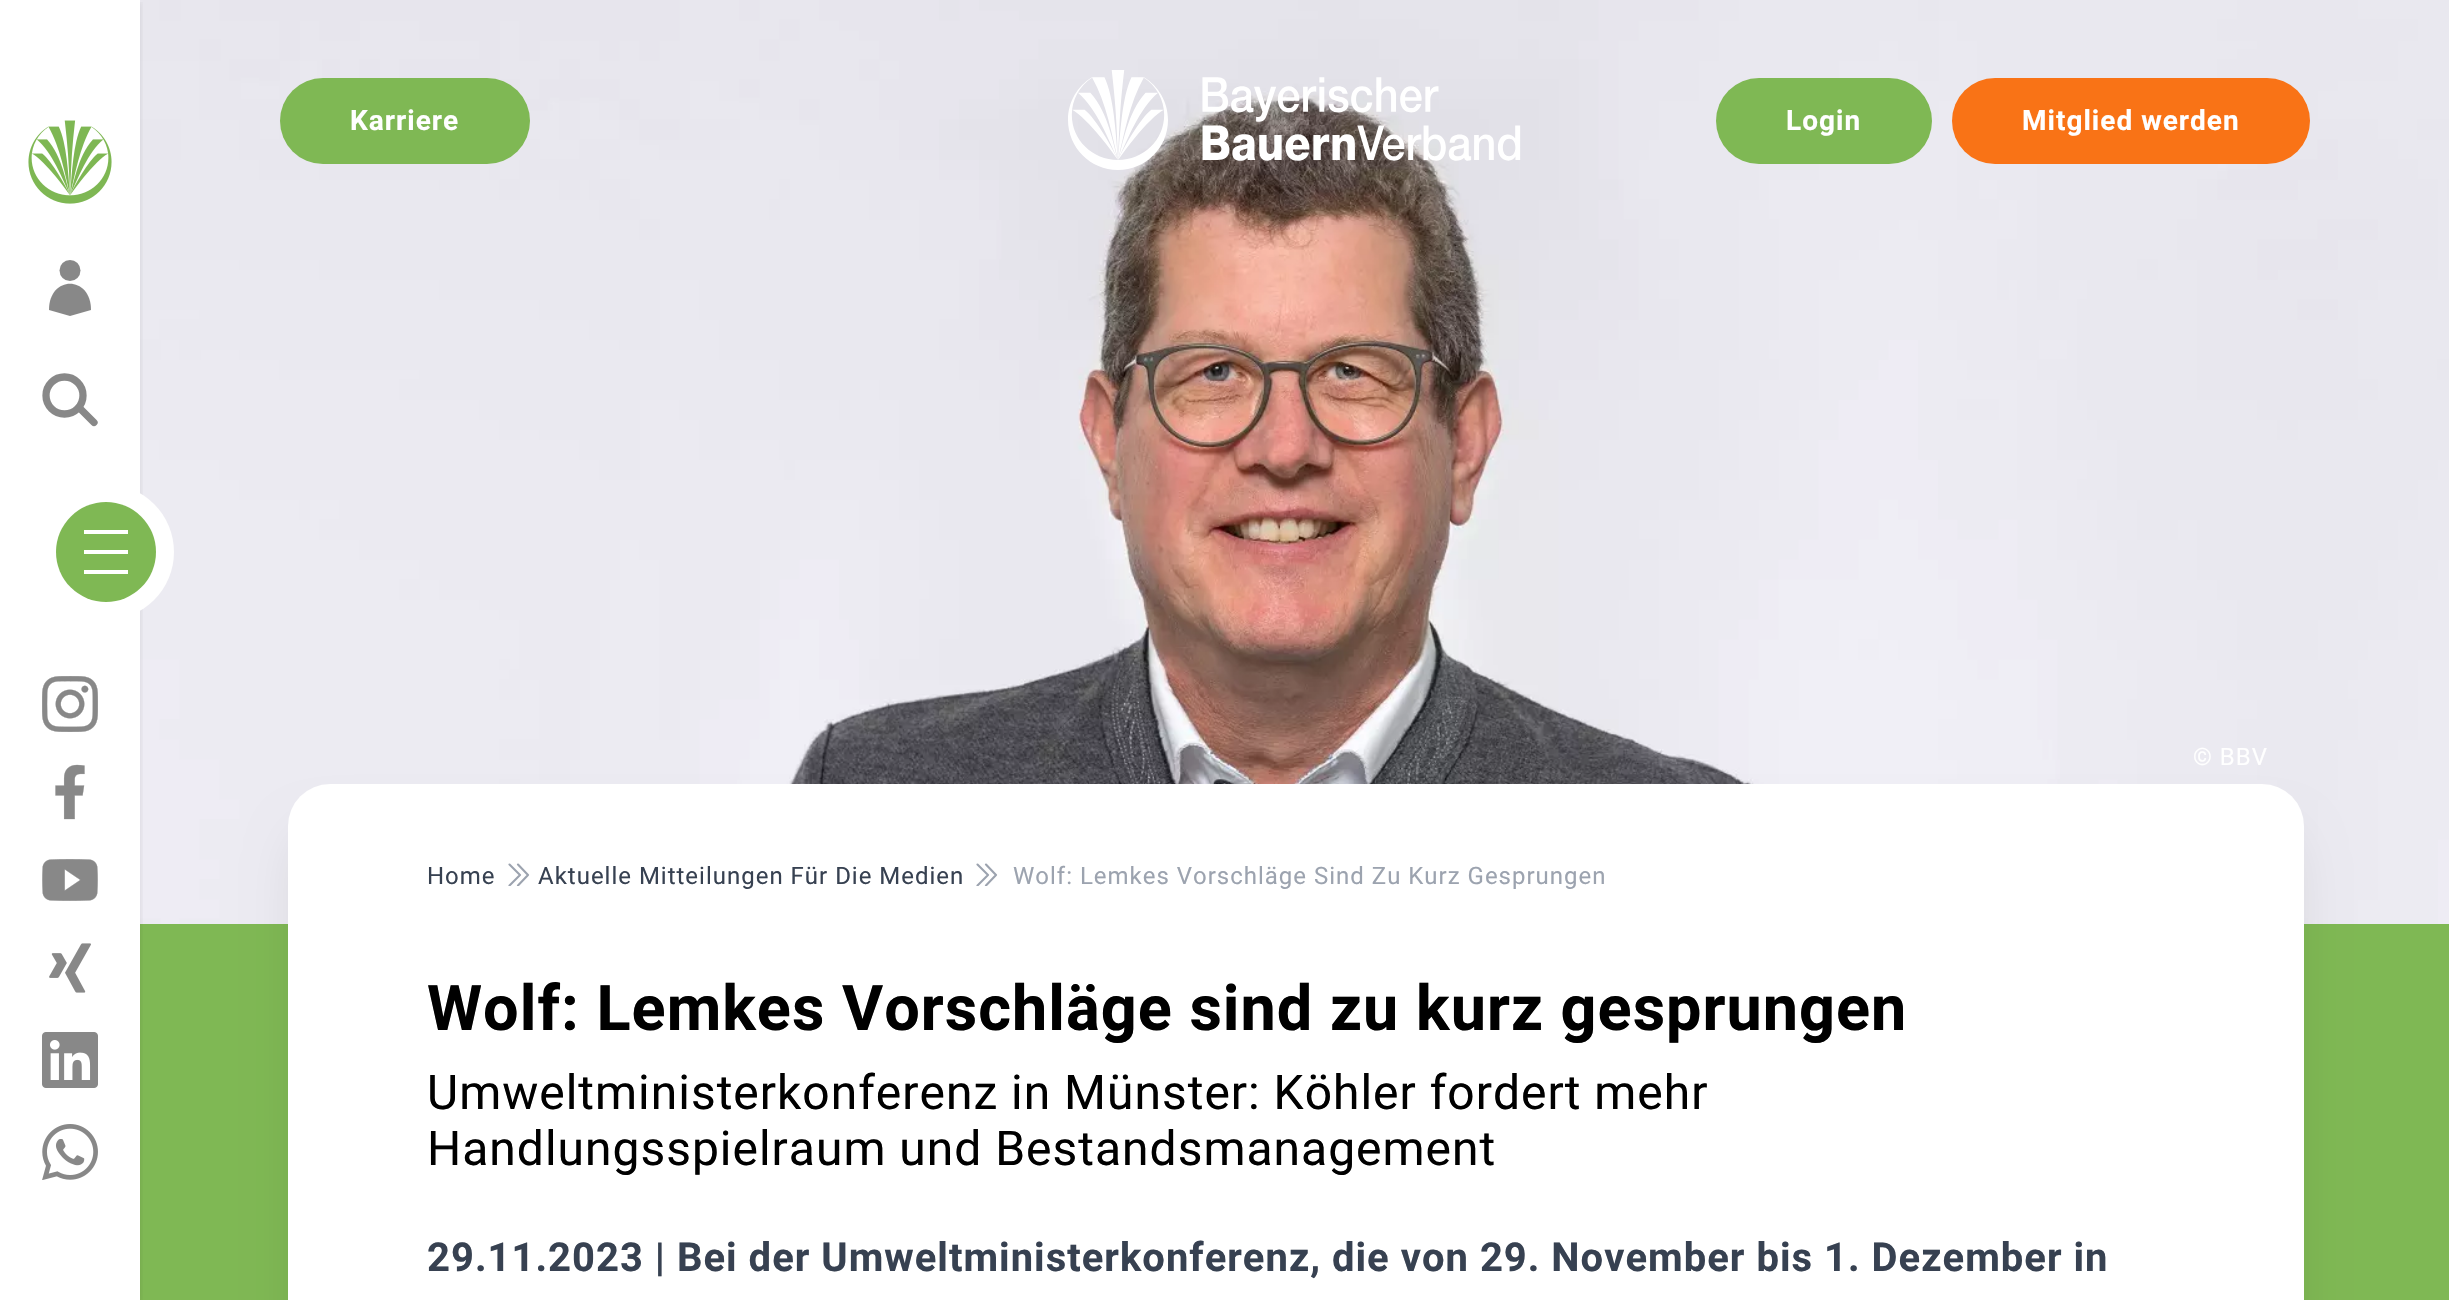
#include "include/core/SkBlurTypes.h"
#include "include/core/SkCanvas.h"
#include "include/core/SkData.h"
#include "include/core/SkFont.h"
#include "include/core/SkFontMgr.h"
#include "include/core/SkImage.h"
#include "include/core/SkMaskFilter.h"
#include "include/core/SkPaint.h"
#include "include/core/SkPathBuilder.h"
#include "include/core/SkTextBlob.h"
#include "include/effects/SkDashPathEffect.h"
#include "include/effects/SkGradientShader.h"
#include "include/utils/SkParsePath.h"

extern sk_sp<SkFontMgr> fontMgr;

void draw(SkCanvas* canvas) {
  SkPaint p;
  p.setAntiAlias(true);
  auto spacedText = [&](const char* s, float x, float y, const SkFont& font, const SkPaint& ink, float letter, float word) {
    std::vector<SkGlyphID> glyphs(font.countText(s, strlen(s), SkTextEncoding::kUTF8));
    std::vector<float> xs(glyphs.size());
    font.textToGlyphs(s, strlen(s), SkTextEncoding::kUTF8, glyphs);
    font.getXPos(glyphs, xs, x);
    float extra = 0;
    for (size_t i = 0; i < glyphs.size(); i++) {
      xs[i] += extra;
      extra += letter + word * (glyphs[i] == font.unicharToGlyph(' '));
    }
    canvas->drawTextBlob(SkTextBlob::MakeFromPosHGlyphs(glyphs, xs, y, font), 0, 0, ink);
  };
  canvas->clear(SK_ColorWHITE);
  p.setColor(SkColorSetRGB(127, 184, 84));
  canvas->drawRect(SkRect::MakeLTRB(140, 924, 2449, 1300), p);
  canvas->drawImageRect(SkImages::DeferredFromEncodedData(SkData::MakeFromFileName("images/9.png")), SkRect::MakeLTRB(140, 0, 2449, 924), SkSamplingOptions());
  canvas->save();
  canvas->clipRect(SkRect::MakeLTRB(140, 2, 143, 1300));
  p.setColor(SkColorSetARGB(26, 0, 0, 0));
  p.setMaskFilter(SkMaskFilter::MakeBlur(kNormal_SkBlurStyle, 3));
  canvas->drawRect(SkRect::MakeLTRB(-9, 2, 140, 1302), p);
  p.setMaskFilter(nullptr);
  canvas->restore();
  canvas->drawImageRect(SkImages::DeferredFromEncodedData(SkData::MakeFromFileName("images/1.png")), SkRect::MakeLTRB(28, 120, 112, 204), SkSamplingOptions());
  p.setColor(SkColorSetRGB(136, 136, 136));
  canvas->drawPath(SkPathBuilder().moveTo(49, 310).cubicTo(49, 275, 91, 275, 91, 310).lineTo(70, 316).close().detach(), p);
  canvas->drawCircle(70, 270.5f, 10.5f, p);
  p.setStyle(SkPaint::kStroke_Style);
  p.setStrokeWidth(7.3f);
  canvas->drawCircle(64.5f, 395.5f, 18.5f, p);
  p.setStrokeCap(SkPaint::kRound_Cap);
  canvas->drawPath(SkPathBuilder().moveTo(79, 407.5f).lineTo(94, 422.5f).detach(), p);
  p.setStyle(SkPaint::kFill_Style);
  p.setColor(SK_ColorWHITE);
  canvas->drawCircle(106, 552, 68, p);
  p.setColor(SkColorSetRGB(127, 184, 84));
  canvas->drawCircle(106, 552, 50, p);
  p.setColor(SK_ColorWHITE);
  canvas->drawRect(SkRect::MakeLTRB(84, 530, 128, 534), p);
  canvas->drawRect(SkRect::MakeLTRB(84, 550, 128, 554), p);
  canvas->drawRect(SkRect::MakeLTRB(84, 570, 128, 574), p);
  canvas->drawImageRect(SkImages::DeferredFromEncodedData(SkData::MakeFromFileName("images/2.png")), SkRect::MakeLTRB(42, 676, 98, 732), SkSamplingOptions());
  canvas->drawImageRect(SkImages::DeferredFromEncodedData(SkData::MakeFromFileName("images/3.png")), SkRect::MakeLTRB(55, 764, 85, 820), SkSamplingOptions());
  canvas->drawImageRect(SkImages::DeferredFromEncodedData(SkData::MakeFromFileName("images/4.png")), SkRect::MakeLTRB(42, 859, 98, 901), SkSamplingOptions());
  canvas->drawImageRect(SkImages::DeferredFromEncodedData(SkData::MakeFromFileName("images/5.png")), SkRect::MakeLTRB(49, 943, 91, 993), SkSamplingOptions());
  canvas->drawImageRect(SkImages::DeferredFromEncodedData(SkData::MakeFromFileName("images/6.png")), SkRect::MakeLTRB(42, 1032, 98, 1088), SkSamplingOptions());
  canvas->drawImageRect(SkImages::DeferredFromEncodedData(SkData::MakeFromFileName("images/7.png")), SkRect::MakeLTRB(42, 1124, 98, 1180), SkSamplingOptions());
  p.setColor(SkColorSetRGB(127, 184, 84));
  canvas->drawRoundRect(SkRect::MakeLTRB(280, 78, 530, 164), 43, 43, p);
  canvas->drawImageRect(SkImages::DeferredFromEncodedData(SkData::MakeFromFileName("images/8.png")), SkRect::MakeLTRB(1068, 70, 1521, 170), SkSamplingOptions());
  canvas->drawRoundRect(SkRect::MakeLTRB(1716, 78, 1932, 164), 43, 43, p);
  p.setColor(SkColorSetRGB(249, 115, 22));
  canvas->drawRoundRect(SkRect::MakeLTRB(1952, 78, 2310, 164), 43, 43, p);
  p.setColor(SkColorSetARGB(26, 0, 0, 0));
  p.setMaskFilter(SkMaskFilter::MakeBlur(kNormal_SkBlurStyle, 25));
  canvas->drawRoundRect(SkRect::MakeLTRB(298, 834, 2294, 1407), 32, 32, p);
  p.setMaskFilter(nullptr);
  p.setColor(SK_ColorWHITE);
  canvas->drawRoundRect(SkRect::MakeLTRB(288, 784, 2304, 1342), 42, 42, p);
  canvas->save();
  canvas->clipRect(SkRect::MakeLTRB(502, 858, 530, 886));
  p.setStyle(SkPaint::kStroke_Style);
  p.setStrokeWidth(2.1f);
  p.setStrokeJoin(SkPaint::kRound_Join);
  p.setColor(SkColorSetRGB(156, 163, 175));
  canvas->drawPath(SkPathBuilder().moveTo(518, 864.5f).lineTo(528, 875).lineTo(518, 885.5f).moveTo(509.5f, 864.5f).lineTo(520, 875).lineTo(509.5f, 885.5f).detach(), p);
  canvas->restore();
  canvas->save();
  canvas->clipRect(SkRect::MakeLTRB(970, 858, 998, 886));
  canvas->drawPath(SkPathBuilder().moveTo(986, 864.5f).lineTo(996, 875).lineTo(986, 885.5f).moveTo(977.5f, 864.5f).lineTo(988, 875).lineTo(977.5f, 885.5f).detach(), p);
  canvas->restore();
  SkFont font1(fontMgr->matchFamilyStyle("Roboto", SkFontStyle::Bold()), 28);
  font1.setSubpixel(true);
  p.setStyle(SkPaint::kFill_Style);
  p.setColor(SK_ColorWHITE);
  spacedText("Karriere", 350, 130, font1, p, 1, 0);
  spacedText("Login", 1786, 130, font1, p, 1, 0);
  spacedText("Mitglied werden", 2022, 130, font1, p, 1, 0);
  SkFont font2(fontMgr->matchFamilyStyle("Roboto", SkFontStyle::Normal()), 24);
  font2.setSubpixel(true);
  spacedText("© BBV", 2193, 765, font2, p, 1, 0);
  p.setColor(SkColorSetRGB(55, 65, 81));
  spacedText("Home", 427, 884, font2, p, 1, 0);
  spacedText("Aktuelle Mitteilungen Für Die Medien", 538, 884, font2, p, 1, 0);
  p.setColor(SkColorSetRGB(156, 163, 175));
  spacedText("Wolf: Lemkes Vorschläge Sind Zu Kurz Gesprungen", 1013, 884, font2, p, 1, 0);
  SkFont font3(fontMgr->matchFamilyStyle("Roboto", SkFontStyle::Bold()), 63);
  font3.setSubpixel(true);
  p.setColor(SK_ColorBLACK);
  spacedText("Wolf: Lemkes Vorschläge sind zu kurz gesprungen", 427, 1030, font3, p, 1, 0);
  SkFont font4(fontMgr->matchFamilyStyle("Roboto", SkFontStyle::Normal()), 48);
  font4.setSubpixel(true);
  spacedText("Umweltministerkonferenz in Münster: Köhler fordert mehr", 427, 1109, font4, p, 1, 0);
  spacedText("Handlungsspielraum und Bestandsmanagement", 427, 1165, font4, p, 1, 0);
  SkFont font5(fontMgr->matchFamilyStyle("Roboto", SkFontStyle::Bold()), 40);
  font5.setSubpixel(true);
  p.setColor(SkColorSetRGB(55, 65, 81));
  spacedText("29.11.2023 | Bei der Umweltministerkonferenz, die von 29. November bis 1. Dezember in", 427, 1271, font5, p, 1, 0);
}
